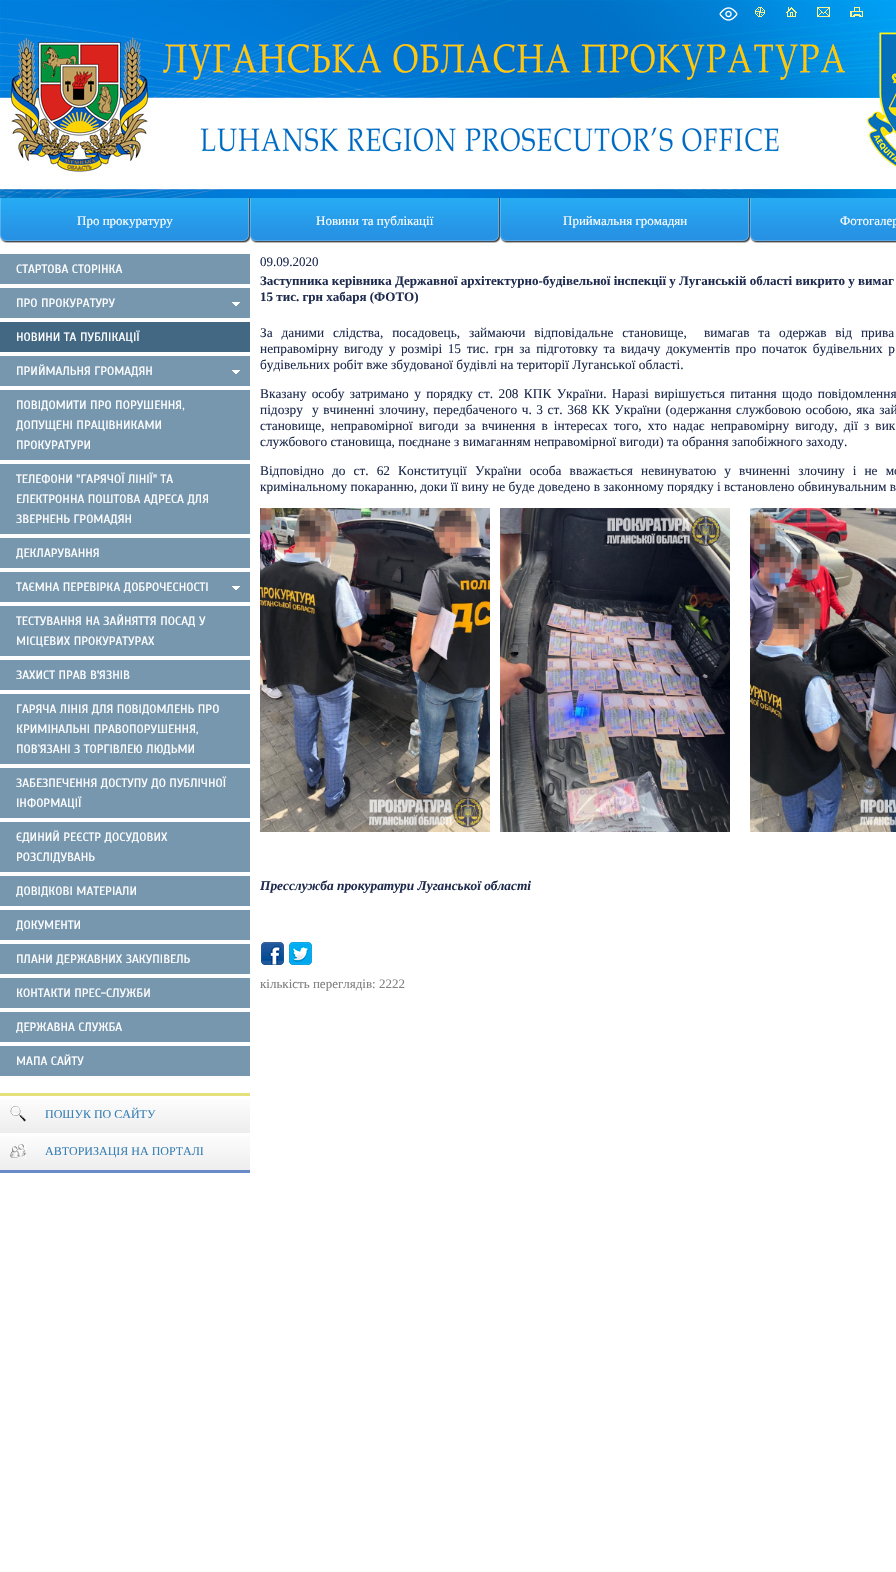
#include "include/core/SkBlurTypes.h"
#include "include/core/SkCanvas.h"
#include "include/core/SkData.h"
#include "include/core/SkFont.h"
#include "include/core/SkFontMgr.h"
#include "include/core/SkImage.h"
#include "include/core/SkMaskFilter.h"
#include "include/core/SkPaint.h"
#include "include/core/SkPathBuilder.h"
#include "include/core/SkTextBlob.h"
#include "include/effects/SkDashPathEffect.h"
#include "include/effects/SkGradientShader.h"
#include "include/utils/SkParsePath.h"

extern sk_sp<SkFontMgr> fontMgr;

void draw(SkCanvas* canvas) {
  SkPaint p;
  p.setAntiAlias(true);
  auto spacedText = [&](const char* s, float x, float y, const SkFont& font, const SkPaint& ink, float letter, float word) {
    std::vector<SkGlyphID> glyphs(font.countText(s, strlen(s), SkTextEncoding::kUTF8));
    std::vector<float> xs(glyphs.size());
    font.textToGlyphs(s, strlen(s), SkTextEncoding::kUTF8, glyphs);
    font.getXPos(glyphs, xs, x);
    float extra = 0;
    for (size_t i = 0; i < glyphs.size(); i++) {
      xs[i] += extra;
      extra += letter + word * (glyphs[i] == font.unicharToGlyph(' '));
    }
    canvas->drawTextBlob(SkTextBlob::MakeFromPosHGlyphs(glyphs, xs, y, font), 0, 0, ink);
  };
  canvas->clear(SK_ColorWHITE);
  canvas->drawImageRect(SkImages::DeferredFromEncodedData(SkData::MakeFromFileName("images/1.png")), SkRect::MakeLTRB(0, 0, 896, 198), SkSamplingOptions());
  canvas->drawImageRect(SkImages::DeferredFromEncodedData(SkData::MakeFromFileName("images/2.png")), SkRect::MakeLTRB(719, 7, 738, 21), SkSamplingOptions());
  canvas->drawImageRect(SkImages::DeferredFromEncodedData(SkData::MakeFromFileName("images/3.png")), SkRect::MakeLTRB(755, 7, 765, 17), SkSamplingOptions());
  canvas->drawImageRect(SkImages::DeferredFromEncodedData(SkData::MakeFromFileName("images/4.png")), SkRect::MakeLTRB(786, 7, 797, 17), SkSamplingOptions());
  canvas->drawImageRect(SkImages::DeferredFromEncodedData(SkData::MakeFromFileName("images/5.png")), SkRect::MakeLTRB(817, 7, 830, 17), SkSamplingOptions());
  canvas->drawImageRect(SkImages::DeferredFromEncodedData(SkData::MakeFromFileName("images/6.png")), SkRect::MakeLTRB(850, 7, 863, 17), SkSamplingOptions());
  canvas->drawImageRect(SkImages::DeferredFromEncodedData(SkData::MakeFromFileName("images/7.png")), SkRect::MakeLTRB(0, 198, 250, 243), SkSamplingOptions());
  canvas->drawImageRect(SkImages::DeferredFromEncodedData(SkData::MakeFromFileName("images/7.png")), SkRect::MakeLTRB(250, 198, 500, 243), SkSamplingOptions());
  canvas->drawImageRect(SkImages::DeferredFromEncodedData(SkData::MakeFromFileName("images/7.png")), SkRect::MakeLTRB(500, 198, 750, 243), SkSamplingOptions());
  canvas->drawImageRect(SkImages::DeferredFromEncodedData(SkData::MakeFromFileName("images/8.png")), SkRect::MakeLTRB(750, 198, 896, 243), SkSamplingOptions());
  p.setColor(SkColorSetRGB(119, 151, 175));
  canvas->drawRect(SkRect::MakeLTRB(0, 254, 250, 284), p);
  canvas->drawRect(SkRect::MakeLTRB(0, 288, 250, 318), p);
  canvas->drawImageRect(SkImages::DeferredFromEncodedData(SkData::MakeFromFileName("images/9.png")), SkRect::MakeLTRB(232, 302, 240, 306), SkSamplingOptions());
  p.setColor(SkColorSetRGB(66, 104, 132));
  canvas->drawRect(SkRect::MakeLTRB(0, 322, 250, 352), p);
  p.setColor(SkColorSetRGB(119, 151, 175));
  canvas->drawRect(SkRect::MakeLTRB(0, 356, 250, 386), p);
  canvas->drawImageRect(SkImages::DeferredFromEncodedData(SkData::MakeFromFileName("images/9.png")), SkRect::MakeLTRB(232, 370, 240, 374), SkSamplingOptions());
  canvas->drawRect(SkRect::MakeLTRB(0, 390, 250, 460), p);
  canvas->drawRect(SkRect::MakeLTRB(0, 464, 250, 534), p);
  canvas->drawRect(SkRect::MakeLTRB(0, 538, 250, 568), p);
  canvas->drawRect(SkRect::MakeLTRB(0, 572, 250, 602), p);
  canvas->drawImageRect(SkImages::DeferredFromEncodedData(SkData::MakeFromFileName("images/9.png")), SkRect::MakeLTRB(232, 586, 240, 590), SkSamplingOptions());
  canvas->drawRect(SkRect::MakeLTRB(0, 606, 250, 656), p);
  canvas->drawRect(SkRect::MakeLTRB(0, 660, 250, 690), p);
  canvas->drawRect(SkRect::MakeLTRB(0, 694, 250, 764), p);
  canvas->drawRect(SkRect::MakeLTRB(0, 768, 250, 818), p);
  canvas->drawRect(SkRect::MakeLTRB(0, 822, 250, 872), p);
  canvas->drawRect(SkRect::MakeLTRB(0, 876, 250, 906), p);
  canvas->drawRect(SkRect::MakeLTRB(0, 910, 250, 940), p);
  canvas->drawRect(SkRect::MakeLTRB(0, 944, 250, 974), p);
  canvas->drawRect(SkRect::MakeLTRB(0, 978, 250, 1008), p);
  canvas->drawRect(SkRect::MakeLTRB(0, 1012, 250, 1042), p);
  canvas->drawRect(SkRect::MakeLTRB(0, 1046, 250, 1076), p);
  p.setColor(SkColorSetRGB(228, 224, 124));
  canvas->drawRect(SkRect::MakeLTRB(0, 1093, 250, 1096), p);
  p.setColor(SkColorSetRGB(105, 139, 200));
  canvas->drawRect(SkRect::MakeLTRB(0, 1170, 250, 1173), p);
  {
    const SkColor colors[] = {SkColorSetRGB(254, 254, 254), SkColorSetRGB(237, 237, 237)};
    const float stops[] = {0, 1};
    const SkPoint ends[] = {{125, 1096}, {125, 1133}};
    p.setShader(SkGradientShader::MakeLinear(ends, colors, stops, 2, SkTileMode::kClamp));
    p.setAlpha(255);
  }
  canvas->drawRect(SkRect::MakeLTRB(0, 1099, 250, 1133), p);
  canvas->drawImageRect(SkImages::DeferredFromEncodedData(SkData::MakeFromFileName("images/10.png")), SkRect::MakeLTRB(10, 1106, 26, 1122), SkSamplingOptions());
  {
    const SkColor colors[] = {SkColorSetRGB(254, 254, 254), SkColorSetRGB(237, 237, 237)};
    const float stops[] = {0, 1};
    const SkPoint ends[] = {{125, 1133}, {125, 1170}};
    p.setShader(SkGradientShader::MakeLinear(ends, colors, stops, 2, SkTileMode::kClamp));
    p.setAlpha(255);
  }
  canvas->drawRect(SkRect::MakeLTRB(0, 1136, 250, 1170), p);
  canvas->drawImageRect(SkImages::DeferredFromEncodedData(SkData::MakeFromFileName("images/11.png")), SkRect::MakeLTRB(10, 1143, 26, 1159), SkSamplingOptions());
  canvas->drawImageRect(SkImages::DeferredFromEncodedData(SkData::MakeFromFileName("images/12.png")), SkRect::MakeLTRB(260, 508, 490, 832), SkSamplingOptions());
  canvas->drawImageRect(SkImages::DeferredFromEncodedData(SkData::MakeFromFileName("images/13.png")), SkRect::MakeLTRB(500, 508, 730, 832), SkSamplingOptions());
  canvas->drawImageRect(SkImages::DeferredFromEncodedData(SkData::MakeFromFileName("images/14.png")), SkRect::MakeLTRB(750, 508, 896, 832), SkSamplingOptions());
  canvas->drawImageRect(SkImages::DeferredFromEncodedData(SkData::MakeFromFileName("images/15.png")), SkRect::MakeLTRB(261, 942, 284, 965), SkSamplingOptions());
  canvas->drawImageRect(SkImages::DeferredFromEncodedData(SkData::MakeFromFileName("images/16.png")), SkRect::MakeLTRB(289, 942, 312, 965), SkSamplingOptions());
  SkFont font1(fontMgr->matchFamilyStyle("Liberation Serif", SkFontStyle::Normal()), 13);
  font1.setSubpixel(true);
  p.setShader(nullptr);
  p.setColor(SK_ColorWHITE);
  canvas->drawString("Про прокуратуру", 77, 225, font1, p);
  canvas->drawString("Новини та публікації", 316, 225, font1, p);
  canvas->drawString("Приймальня громадян", 563, 225, font1, p);
  canvas->drawString("Фотогалер", 840, 225, font1, p);
  SkFont font2(fontMgr->matchFamilyStyle("Scada", SkFontStyle::Normal()), 12);
  font2.setSubpixel(true);
  canvas->drawString("СТАРТОВА СТОРІНКА", 16, 273, font2, p);
  canvas->drawString("ПРО ПРОКУРАТУРУ", 16, 307, font2, p);
  canvas->drawString("НОВИНИ ТА ПУБЛІКАЦІЇ", 16, 341, font2, p);
  canvas->drawString("ПРИЙМАЛЬНЯ ГРОМАДЯН", 16, 375, font2, p);
  canvas->drawString("ПОВІДОМИТИ ПРО ПОРУШЕННЯ,", 16, 409, font2, p);
  canvas->drawString("ДОПУЩЕНІ ПРАЦІВНИКАМИ", 16, 429, font2, p);
  canvas->drawString("ПРОКУРАТУРИ", 16, 449, font2, p);
  canvas->drawString("ТЕЛЕФОНИ \"ГАРЯЧОЇ ЛІНІЇ\" ТА", 16, 483, font2, p);
  canvas->drawString("ЕЛЕКТРОННА ПОШТОВА АДРЕСА ДЛЯ", 16, 503, font2, p);
  canvas->drawString("ЗВЕРНЕНЬ ГРОМАДЯН", 16, 523, font2, p);
  canvas->drawString("ДЕКЛАРУВАННЯ", 16, 557, font2, p);
  canvas->drawString("ТАЄМНА ПЕРЕВІРКА ДОБРОЧЕСНОСТІ", 16, 591, font2, p);
  canvas->drawString("ТЕСТУВАННЯ НА ЗАЙНЯТТЯ ПОСАД У", 16, 625, font2, p);
  canvas->drawString("МІСЦЕВИХ ПРОКУРАТУРАХ", 16, 645, font2, p);
  canvas->drawString("ЗАХИСТ ПРАВ В'ЯЗНІВ", 16, 679, font2, p);
  canvas->drawString("ГАРЯЧА ЛІНІЯ ДЛЯ ПОВІДОМЛЕНЬ ПРО", 16, 713, font2, p);
  canvas->drawString("КРИМІНАЛЬНІ ПРАВОПОРУШЕННЯ,", 16, 733, font2, p);
  canvas->drawString("ПОВ`ЯЗАНІ З ТОРГІВЛЕЮ ЛЮДЬМИ", 16, 753, font2, p);
  canvas->drawString("ЗАБЕЗПЕЧЕННЯ ДОСТУПУ ДО ПУБЛІЧНОЇ", 16, 787, font2, p);
  canvas->drawString("ІНФОРМАЦІЇ", 16, 807, font2, p);
  canvas->drawString("ЄДИНИЙ РЕЄСТР ДОСУДОВИХ", 16, 841, font2, p);
  canvas->drawString("РОЗСЛІДУВАНЬ", 16, 861, font2, p);
  canvas->drawString("ДОВІДКОВІ МАТЕРІАЛИ", 16, 895, font2, p);
  canvas->drawString("ДОКУМЕНТИ", 16, 929, font2, p);
  canvas->drawString("ПЛАНИ ДЕРЖАВНИХ ЗАКУПІВЕЛЬ", 16, 963, font2, p);
  canvas->drawString("КОНТАКТИ ПРЕС-СЛУЖБИ", 16, 997, font2, p);
  canvas->drawString("ДЕРЖАВНА СЛУЖБА", 16, 1031, font2, p);
  canvas->drawString("МАПА САЙТУ", 16, 1065, font2, p);
  SkFont font3(fontMgr->matchFamilyStyle("Liberation Serif", SkFontStyle::Normal()), 12);
  font3.setSubpixel(true);
  p.setColor(SkColorSetRGB(57, 128, 182));
  canvas->drawString("ПОШУК ПО САЙТУ", 45, 1118, font3, p);
  canvas->drawString("АВТОРИЗАЦІЯ НА ПОРТАЛІ", 45, 1155, font3, p);
  p.setColor(SkColorSetRGB(31, 44, 79));
  canvas->drawString("09.09.2020", 260, 266, font1, p);
  SkFont font4(fontMgr->matchFamilyStyle("Liberation Serif", SkFontStyle::Bold()), 13);
  font4.setSubpixel(true);
  canvas->drawString("Заступника керівника Державної архітектурно-будівельної інспекції у Луганській області викрито у вимаг", 260, 285, font4, p);
  canvas->drawString("15 тис. грн хабаря (ФОТО)", 260, 301, font4, p);
  SkFont font5(fontMgr->matchFamilyStyle("Liberation Serif", SkFontStyle::Normal()), 13.35f);
  font5.setSubpixel(true);
  spacedText("За даними слідства, посадовець, займаючи відповідальне становище,", 260, 337, font5, p, 0, 5.5f);
  spacedText("вимагав та одержав від прива", 704, 337, font5, p, 0, 5.5f);
  spacedText("неправомірну вигоду у розмірі 15 тис. грн за підготовку та видачу документів про початок будівельних р", 260, 353, font5, p, 0, 2.25f);
  canvas->drawString("будівельних робіт вже збудованої будівлі на території Луганської області.", 260, 369, font5, p);
  spacedText("Вказану особу затримано у порядку ст. 208 КПК України. Наразі вирішується питання щодо повідомлення", 260, 398, font5, p, 0, 2);
  canvas->drawString("підозру", 260, 414, font5, p);
  spacedText("у вчиненні злочину, передбаченого ч. 3 ст. 368 КК України (одержання службовою особою, яка зай", 312, 414, font5, p, 0, 1.25f);
  spacedText("становище, неправомірної вигоди за вчинення в інтересах того, хто надає неправомірну вигоду, дії з вик", 260, 430, font5, p, 0, 2.75f);
  canvas->drawString("службового становища, поєднане з вимаганням неправомірної вигоди) та обрання запобіжного заходу.", 260, 446, font5, p);
  spacedText("Відповідно до ст. 62 Конституції України особа вважається невинуватою у вчиненні злочину і не мо", 260, 475, font5, p, 0, 4.75f);
  canvas->drawString("кримінальному покаранню, доки її вину не буде доведено в законному порядку і встановлено обвинувальним в", 260, 491, font5, p);
  SkFont font6(fontMgr->matchFamilyStyle("Liberation Serif", SkFontStyle::BoldItalic()), 13.35f);
  font6.setSubpixel(true);
  canvas->drawString("Пресслужба прокуратури Луганської області", 260, 890, font6, p);
  p.setColor(SkColorSetRGB(128, 128, 128));
  canvas->drawString("кількість переглядів: 2222", 260, 988, font1, p);
}
